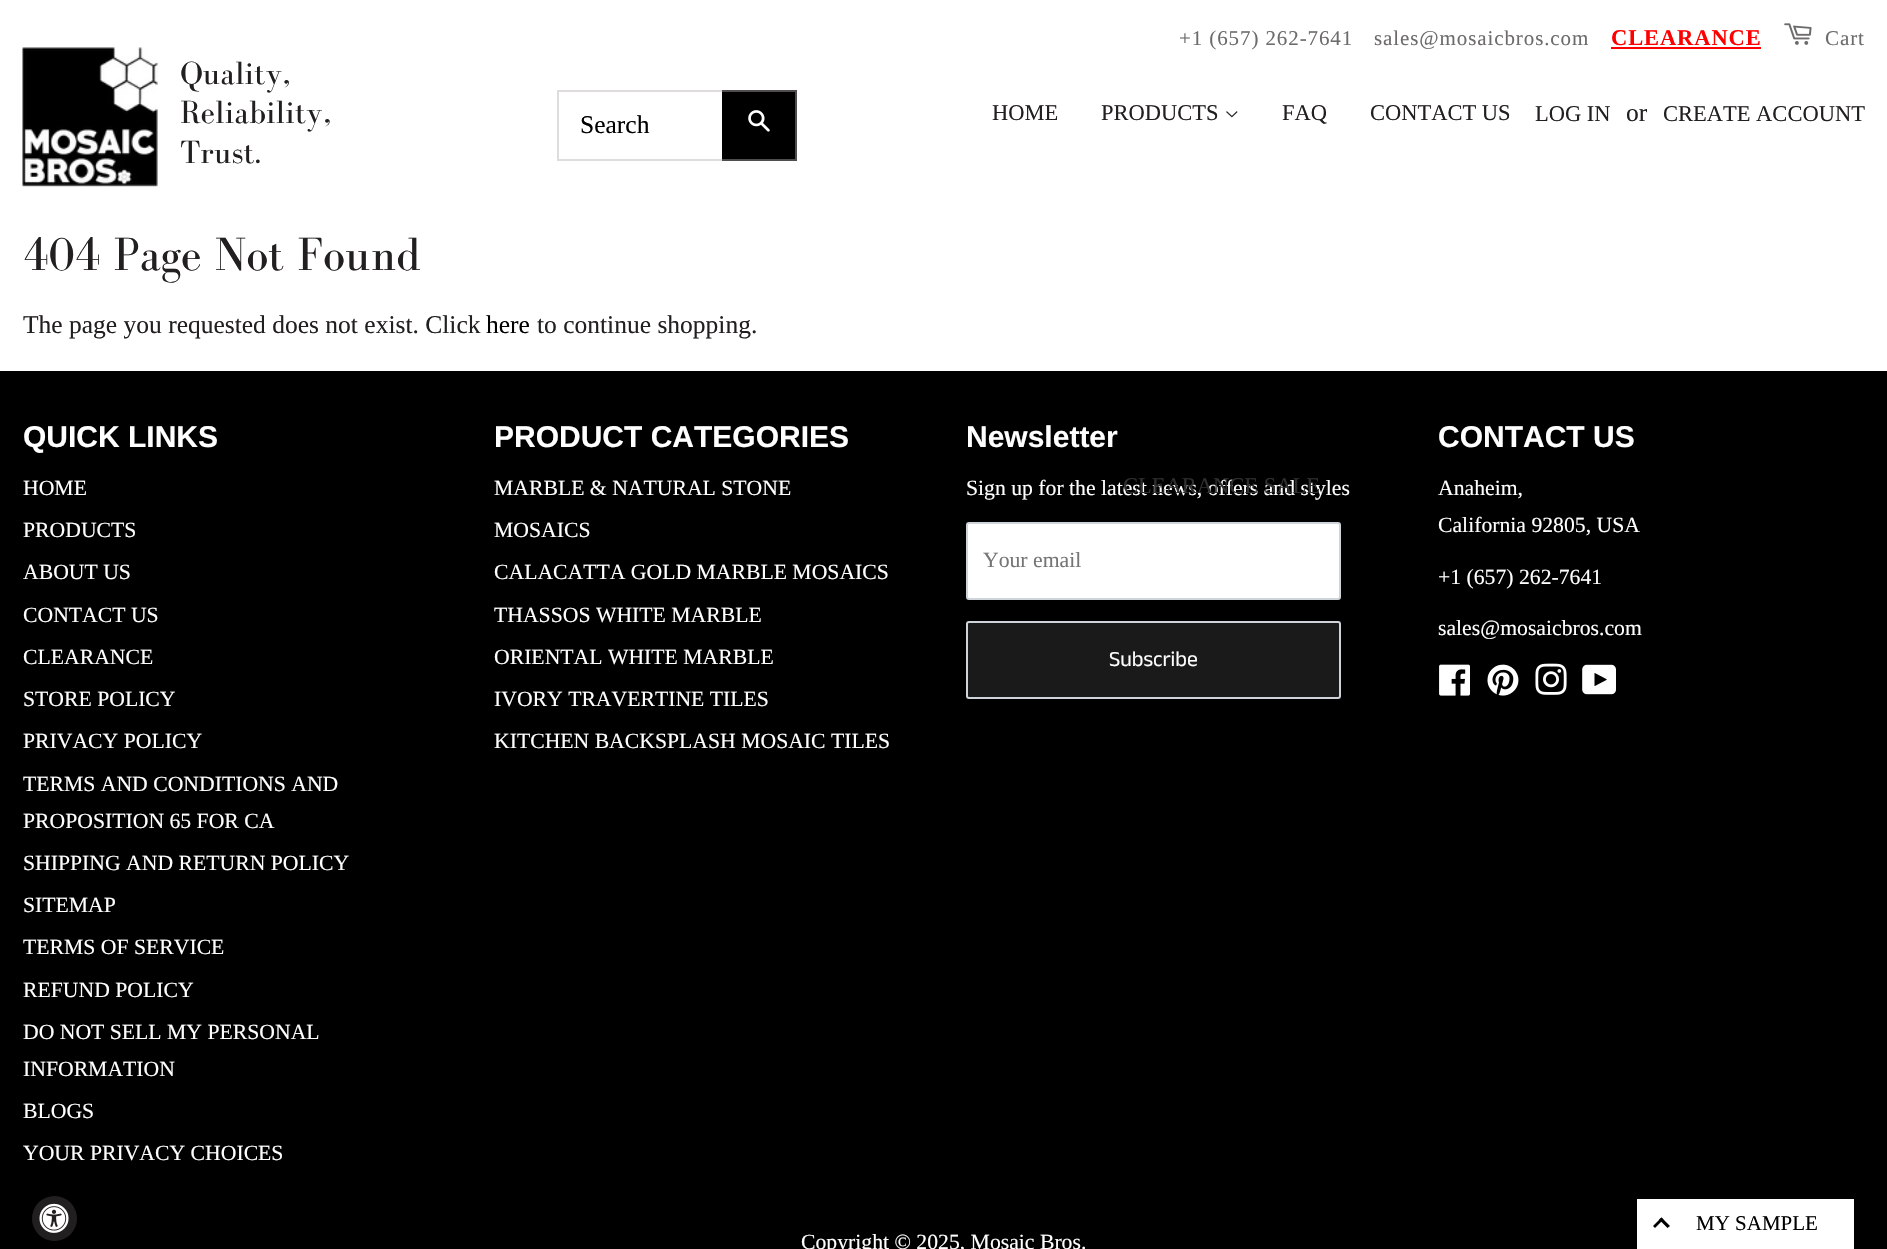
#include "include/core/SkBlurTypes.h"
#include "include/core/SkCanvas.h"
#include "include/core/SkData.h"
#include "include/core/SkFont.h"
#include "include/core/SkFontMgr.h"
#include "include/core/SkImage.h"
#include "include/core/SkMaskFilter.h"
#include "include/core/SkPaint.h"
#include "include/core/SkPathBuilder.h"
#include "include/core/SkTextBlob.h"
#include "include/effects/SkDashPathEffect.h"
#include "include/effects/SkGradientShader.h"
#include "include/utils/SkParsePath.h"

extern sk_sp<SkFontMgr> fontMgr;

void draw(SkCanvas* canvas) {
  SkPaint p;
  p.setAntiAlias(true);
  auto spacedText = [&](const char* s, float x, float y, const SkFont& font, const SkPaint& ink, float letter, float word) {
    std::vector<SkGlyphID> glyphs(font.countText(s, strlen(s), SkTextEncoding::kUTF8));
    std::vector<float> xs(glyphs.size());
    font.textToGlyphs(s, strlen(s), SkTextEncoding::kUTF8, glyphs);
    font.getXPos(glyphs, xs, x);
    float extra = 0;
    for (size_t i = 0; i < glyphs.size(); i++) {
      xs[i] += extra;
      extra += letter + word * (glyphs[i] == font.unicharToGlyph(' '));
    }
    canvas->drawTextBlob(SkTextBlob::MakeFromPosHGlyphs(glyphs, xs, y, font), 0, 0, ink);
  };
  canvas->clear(SK_ColorWHITE);
  p.setColor(SkColorSetRGB(255, 0, 0));
  canvas->drawRect(SkRect::MakeLTRB(1611, 47, 1761, 49), p);
  canvas->drawImageRect(SkImages::DeferredFromEncodedData(SkData::MakeFromFileName("images/1.png")), SkRect::MakeLTRB(1784, 23, 1812, 45), SkSamplingOptions());
  canvas->drawImageRect(SkImages::DeferredFromEncodedData(SkData::MakeFromFileName("images/2.png")), SkRect::MakeLTRB(22, 47, 158, 187), SkSamplingOptions());
  p.setColor(SK_ColorBLACK);
  canvas->drawRect(SkRect::MakeLTRB(722, 90, 797, 161), p);
  canvas->drawImageRect(SkImages::DeferredFromEncodedData(SkData::MakeFromFileName("images/3.png")), SkRect::MakeLTRB(748, 110, 770, 132), SkSamplingOptions());
  p.setStyle(SkPaint::kStroke_Style);
  p.setStrokeWidth(2);
  p.setColor(SkColorSetARGB(112, 183, 176, 176));
  canvas->drawRect(SkRect::MakeLTRB(558, 91, 796, 160), p);
  canvas->drawImageRect(SkImages::DeferredFromEncodedData(SkData::MakeFromFileName("images/4.png")), SkRect::MakeLTRB(1226, 111, 1238, 118), SkSamplingOptions());
  p.setStyle(SkPaint::kFill_Style);
  p.setColor(SK_ColorBLACK);
  canvas->drawRect(SkRect::MakeLTRB(0, 371, 1887, 1249), p);
  p.setColor(SK_ColorWHITE);
  canvas->drawRoundRect(SkRect::MakeLTRB(967, 523, 1340, 599), 2, 2, p);
  p.setStyle(SkPaint::kStroke_Style);
  p.setColor(SkColorSetRGB(206, 212, 218));
  canvas->drawRoundRect(SkRect::MakeLTRB(967, 523, 1340, 599), 2, 2, p);
  p.setStyle(SkPaint::kFill_Style);
  p.setColor(SkColorSetRGB(26, 26, 26));
  canvas->drawRoundRect(SkRect::MakeLTRB(967, 622, 1340, 698), 2, 2, p);
  p.setStyle(SkPaint::kStroke_Style);
  p.setColor(SkColorSetRGB(206, 212, 218));
  canvas->drawRoundRect(SkRect::MakeLTRB(967, 622, 1340, 698), 2, 2, p);
  canvas->drawImageRect(SkImages::DeferredFromEncodedData(SkData::MakeFromFileName("images/5.png")), SkRect::MakeLTRB(1439, 664, 1470, 696), SkSamplingOptions());
  canvas->drawImageRect(SkImages::DeferredFromEncodedData(SkData::MakeFromFileName("images/6.png")), SkRect::MakeLTRB(1487, 664, 1519, 696), SkSamplingOptions());
  canvas->drawImageRect(SkImages::DeferredFromEncodedData(SkData::MakeFromFileName("images/7.png")), SkRect::MakeLTRB(1535, 663, 1567, 695), SkSamplingOptions());
  canvas->drawImageRect(SkImages::DeferredFromEncodedData(SkData::MakeFromFileName("images/8.png")), SkRect::MakeLTRB(1582, 664, 1616, 695), SkSamplingOptions());
  p.setStyle(SkPaint::kFill_Style);
  p.setColor(SkColorSetRGB(34, 31, 32));
  canvas->drawCircle(54.5f, 1218.5f, 22.5f, p);
  canvas->drawImageRect(SkImages::DeferredFromEncodedData(SkData::MakeFromFileName("images/9.png")), SkRect::MakeLTRB(39, 1203, 69, 1233), SkSamplingOptions());
  p.setColor(SK_ColorWHITE);
  canvas->drawRect(SkRect::MakeLTRB(1637, 1199, 1854, 1249), p);
  p.setColor(SK_ColorBLACK);
  canvas->drawPath(SkPathBuilder().moveTo(1661.5f, 1217.5f).lineTo(1670, 1226).lineTo(1667.5f, 1228).lineTo(1659, 1219.5f).close().detach(), p);
  canvas->drawPath(SkPathBuilder().moveTo(1661.5f, 1217.5f).lineTo(1663.5f, 1219.5f).lineTo(1655, 1228).lineTo(1653, 1226).close().detach(), p);
  SkFont font1(fontMgr->matchFamilyStyle("Liberation Serif", SkFontStyle::Normal()), 21);
  font1.setSubpixel(true);
  p.setColor(SkColorSetRGB(109, 107, 107));
  spacedText("+1 (657) 262-7641", 1179, 45, font1, p, 0.9f, 0);
  spacedText("sales@mosaicbros.com", 1374, 45, font1, p, 0.9f, 0);
  SkFont font2(fontMgr->matchFamilyStyle("Liberation Serif", SkFontStyle::Bold()), 22.5f);
  font2.setSubpixel(true);
  p.setColor(SkColorSetRGB(255, 0, 0));
  spacedText("CLEARANCE", 1611, 45, font2, p, 0.9f, 0);
  p.setColor(SkColorSetRGB(109, 107, 107));
  spacedText("Cart", 1825, 45, font1, p, 0.9f, 0);
  SkFont font3(fontMgr->matchFamilyStyle("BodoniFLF", SkFontStyle::Normal()), 33);
  font3.setSubpixel(true);
  p.setColor(SkColorSetRGB(34, 31, 32));
  canvas->drawString("Quality,", 180, 84, font3, p);
  canvas->drawString("Reliability,", 180, 123, font3, p);
  canvas->drawString("Trust.", 180, 163, font3, p);
  SkFont font4(fontMgr->matchFamilyStyle("Liberation Serif", SkFontStyle::Normal()), 25.5f);
  font4.setSubpixel(true);
  p.setColor(SK_ColorBLACK);
  canvas->drawString("Search", 580, 133, font4, p);
  SkFont font5(fontMgr->matchFamilyStyle("Liberation Serif", SkFontStyle::Normal()), 22.5f);
  font5.setSubpixel(true);
  p.setColor(SkColorSetRGB(34, 31, 32));
  canvas->drawString("HOME", 992, 120, font5, p);
  canvas->drawString("PRODUCTS", 1101, 120, font5, p);
  canvas->drawString("FAQ", 1282, 120, font5, p);
  canvas->drawString("CONTACT US", 1370, 120, font5, p);
  canvas->drawString("LOG IN", 1535, 121, font5, p);
  canvas->drawString("or", 1626, 121, font4, p);
  canvas->drawString("CREATE ACCOUNT", 1663, 121, font5, p);
  SkFont font6(fontMgr->matchFamilyStyle("BodoniFLF", SkFontStyle::Normal()), 48);
  font6.setSubpixel(true);
  canvas->drawString("404 Page Not Found", 23, 270, font6, p);
  canvas->drawString("The page you requested does not exist. Click", 23, 333, font4, p);
  p.setColor(SK_ColorBLACK);
  canvas->drawString("here", 486, 333, font4, p);
  p.setColor(SkColorSetRGB(34, 31, 32));
  canvas->drawString("to continue shopping.", 537, 333, font4, p);
  SkFont font7(fontMgr->matchFamilyStyle("Liberation Sans", SkFontStyle::Bold()), 30);
  font7.setSubpixel(true);
  p.setColor(SK_ColorWHITE);
  canvas->drawString("QUICK LINKS", 23, 447, font7, p);
  SkFont font8(fontMgr->matchFamilyStyle("Liberation Serif", SkFontStyle::Normal()), 21.7f);
  font8.setSubpixel(true);
  canvas->drawString("HOME", 23, 495, font8, p);
  canvas->drawString("PRODUCTS", 23, 537, font8, p);
  canvas->drawString("ABOUT US", 23, 579, font8, p);
  canvas->drawString("CONTACT US", 23, 622, font8, p);
  canvas->drawString("CLEARANCE", 23, 664, font8, p);
  canvas->drawString("STORE POLICY", 23, 706, font8, p);
  canvas->drawString("PRIVACY POLICY", 23, 748, font8, p);
  canvas->drawString("TERMS AND CONDITIONS AND", 23, 791, font8, p);
  canvas->drawString("PROPOSITION 65 FOR CA", 23, 828, font8, p);
  canvas->drawString("SHIPPING AND RETURN POLICY", 23, 870, font8, p);
  canvas->drawString("SITEMAP", 23, 912, font8, p);
  canvas->drawString("TERMS OF SERVICE", 23, 954, font8, p);
  canvas->drawString("REFUND POLICY", 23, 997, font8, p);
  canvas->drawString("DO NOT SELL MY PERSONAL", 23, 1039, font8, p);
  canvas->drawString("INFORMATION", 23, 1076, font8, p);
  canvas->drawString("BLOGS", 23, 1118, font8, p);
  canvas->drawString("YOUR PRIVACY CHOICES", 23, 1160, font8, p);
  canvas->drawString("PRODUCT CATEGORIES", 494, 447, font7, p);
  canvas->drawString("MARBLE & NATURAL STONE", 494, 495, font8, p);
  canvas->drawString("MOSAICS", 494, 537, font8, p);
  canvas->drawString("CALACATTA GOLD MARBLE MOSAICS", 494, 579, font8, p);
  canvas->drawString("THASSOS WHITE MARBLE", 494, 622, font8, p);
  canvas->drawString("ORIENTAL WHITE MARBLE", 494, 664, font8, p);
  canvas->drawString("IVORY TRAVERTINE TILES", 494, 706, font8, p);
  canvas->drawString("KITCHEN BACKSPLASH MOSAIC TILES", 494, 748, font8, p);
  canvas->drawString("Newsletter", 966, 447, font7, p);
  canvas->drawString("Sign up for the latest news, offers and styles", 966, 495, font8, p);
  p.setColor(SkColorSetRGB(47, 47, 47));
  canvas->drawString("CLEARANCE SALE", 1123, 493, font5, p);
  p.setColor(SkColorSetRGB(117, 117, 117));
  canvas->drawString("Your email", 983, 567, font8, p);
  SkFont font9(fontMgr->matchFamilyStyle("Anek Tamil", SkFontStyle::Normal()), 21.7f);
  font9.setSubpixel(true);
  p.setColor(SK_ColorWHITE);
  canvas->drawString("Subscribe", 1109, 666, font9, p);
  canvas->drawString("CONTACT US", 1438, 447, font7, p);
  canvas->drawString("Anaheim,", 1438, 495, font8, p);
  canvas->drawString("California 92805, USA", 1438, 532, font8, p);
  canvas->drawString("+1 (657) 262-7641", 1438, 584, font8, p);
  canvas->drawString("sales@mosaicbros.com", 1438, 635, font8, p);
  canvas->drawString("Copyright © 2025, Mosaic Bros.", 801, 1249, font8, p);
  p.setColor(SK_ColorBLACK);
  canvas->drawString("MY SAMPLE", 1696, 1230, font1, p);
}
